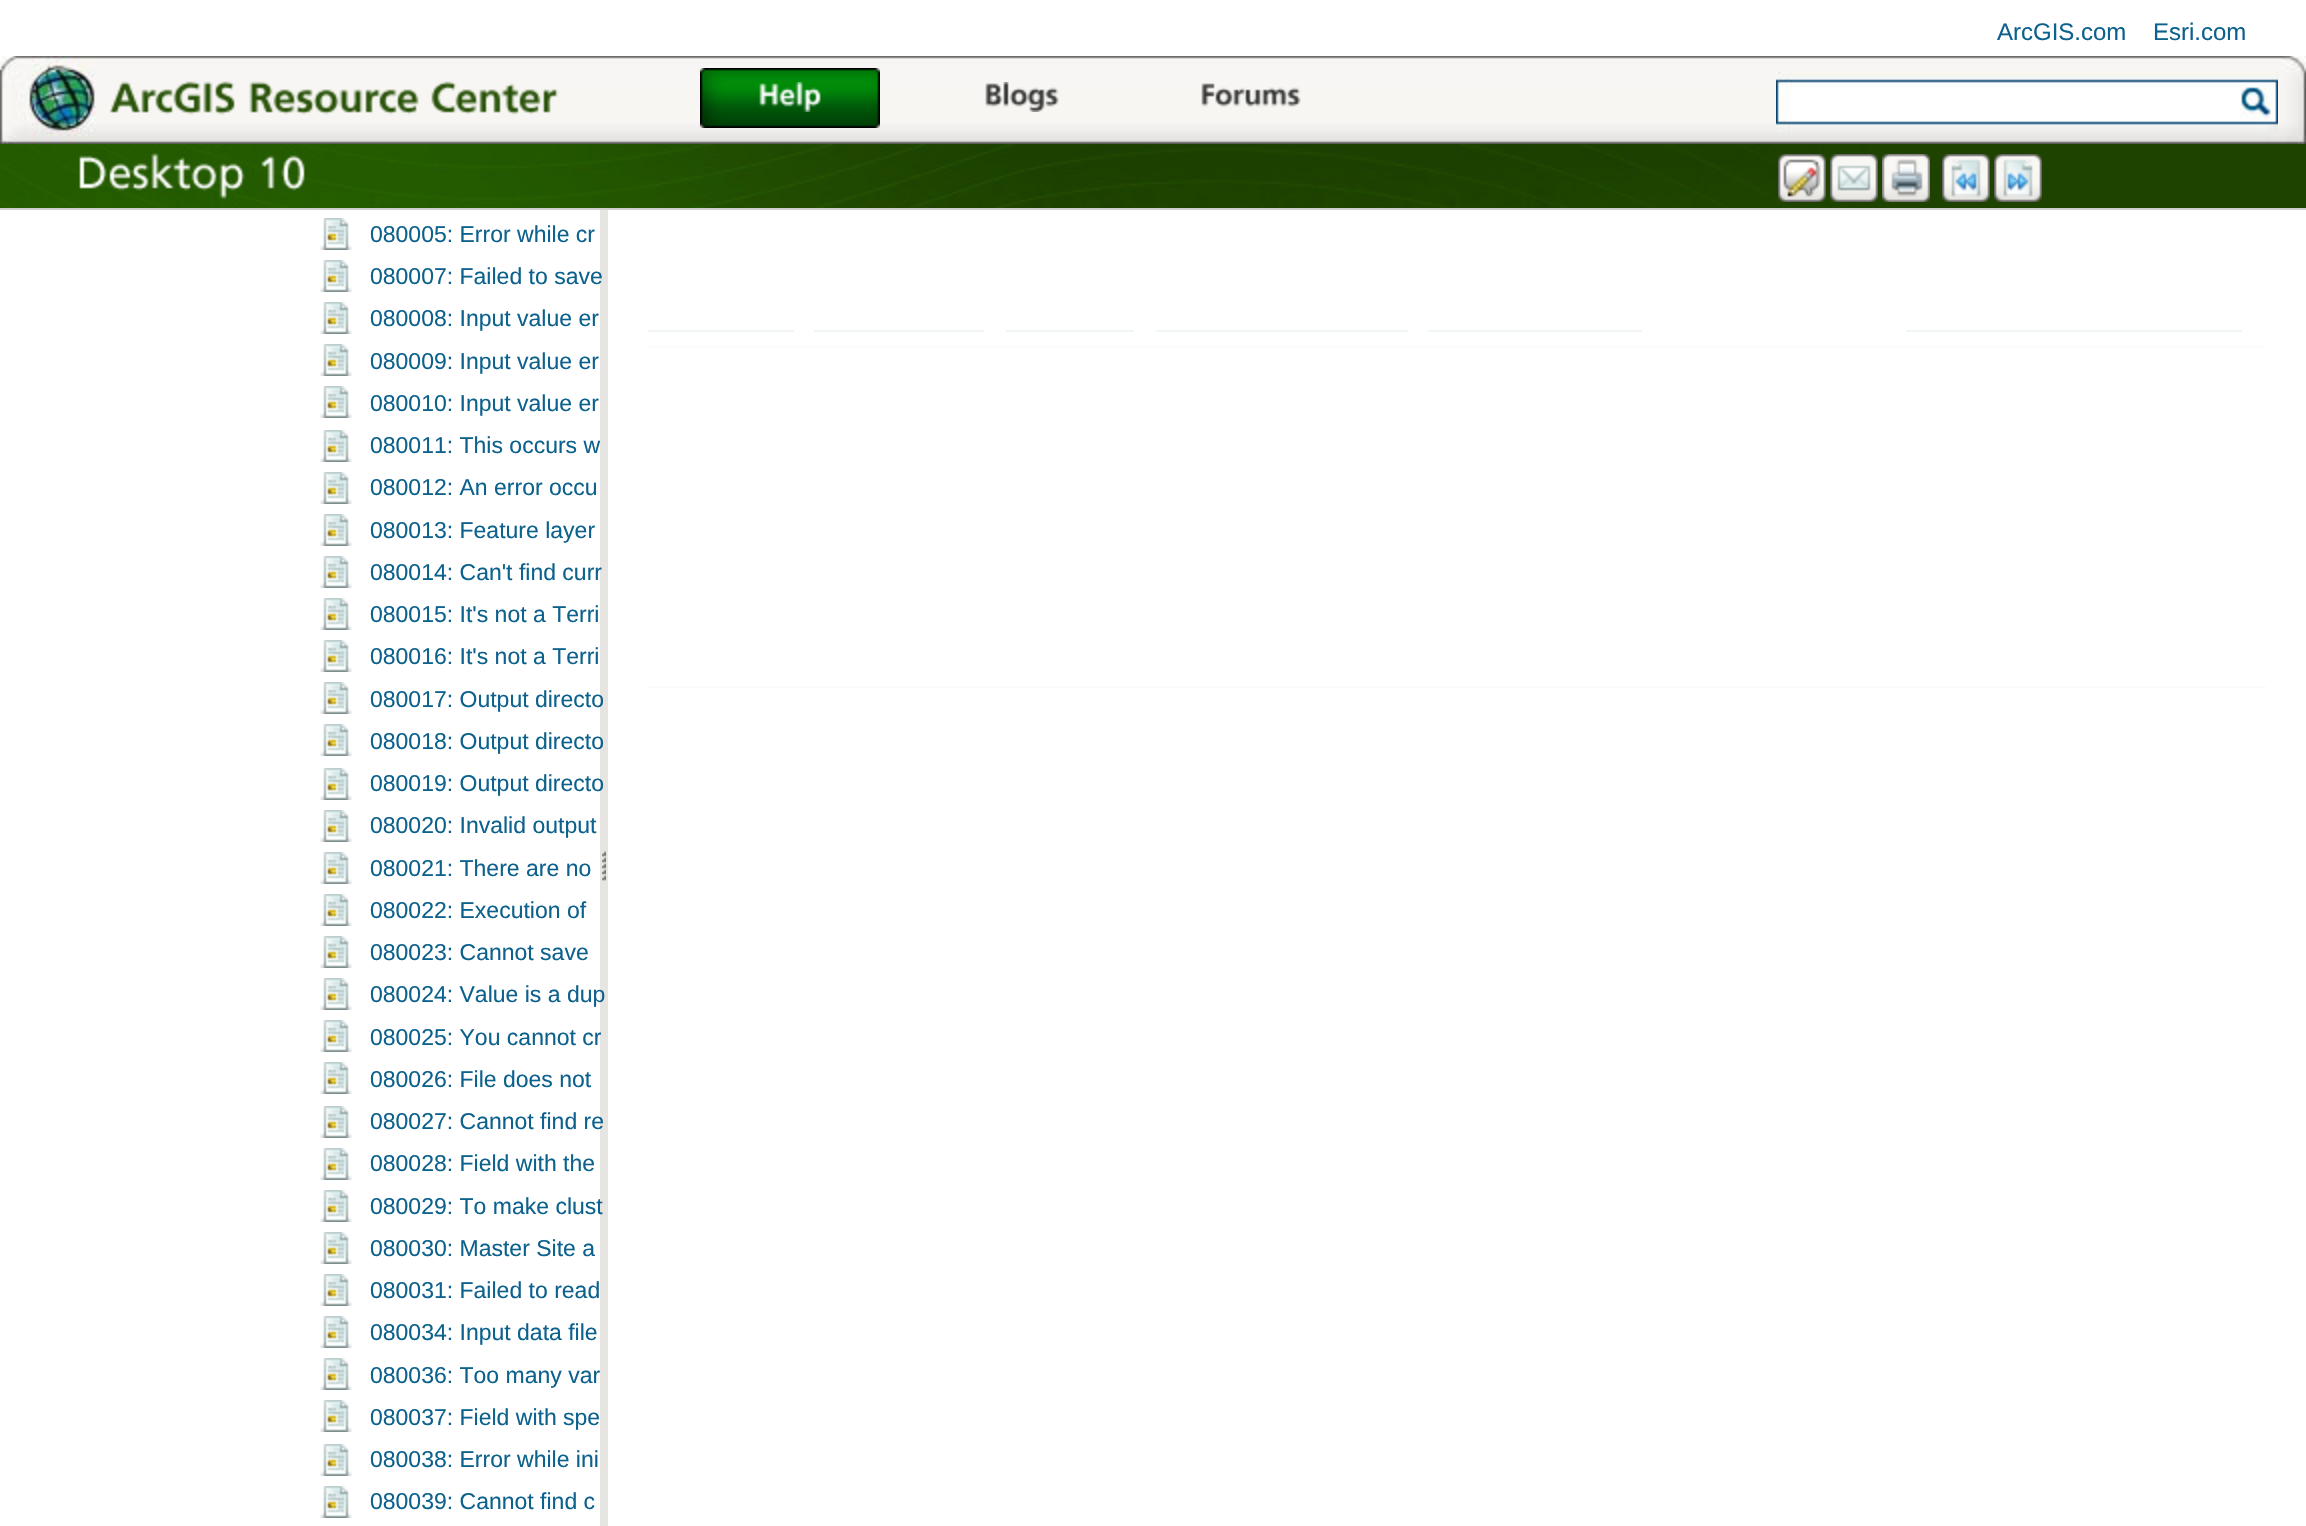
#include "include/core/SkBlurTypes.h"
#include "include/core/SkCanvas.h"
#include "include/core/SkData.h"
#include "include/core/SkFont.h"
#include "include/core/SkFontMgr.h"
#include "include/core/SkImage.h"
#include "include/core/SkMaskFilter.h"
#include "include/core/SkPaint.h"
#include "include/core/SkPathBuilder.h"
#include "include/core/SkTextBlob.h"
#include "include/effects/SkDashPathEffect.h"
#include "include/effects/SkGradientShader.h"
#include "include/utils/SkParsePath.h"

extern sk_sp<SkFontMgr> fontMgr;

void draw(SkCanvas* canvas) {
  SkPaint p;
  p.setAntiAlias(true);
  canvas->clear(SK_ColorWHITE);
  canvas->drawImageRect(SkImages::DeferredFromEncodedData(SkData::MakeFromFileName("images/1.png")), SkRect::MakeLTRB(490, 56, 2306, 144), SkSamplingOptions());
  canvas->drawImageRect(SkImages::DeferredFromEncodedData(SkData::MakeFromFileName("images/2.png")), SkRect::MakeLTRB(0, 56, 490, 144), SkSamplingOptions());
  canvas->drawImageRect(SkImages::DeferredFromEncodedData(SkData::MakeFromFileName("images/3.png")), SkRect::MakeLTRB(110, 81, 235, 115), SkSamplingOptions());
  canvas->drawImageRect(SkImages::DeferredFromEncodedData(SkData::MakeFromFileName("images/4.png")), SkRect::MakeLTRB(249, 81, 419, 115), SkSamplingOptions());
  canvas->drawImageRect(SkImages::DeferredFromEncodedData(SkData::MakeFromFileName("images/5.png")), SkRect::MakeLTRB(431, 81, 559, 115), SkSamplingOptions());
  canvas->drawImageRect(SkImages::DeferredFromEncodedData(SkData::MakeFromFileName("images/6.png")), SkRect::MakeLTRB(700, 68, 880, 128), SkSamplingOptions());
  canvas->drawImageRect(SkImages::DeferredFromEncodedData(SkData::MakeFromFileName("images/7.png")), SkRect::MakeLTRB(759, 82, 821, 112), SkSamplingOptions());
  canvas->drawImageRect(SkImages::DeferredFromEncodedData(SkData::MakeFromFileName("images/8.png")), SkRect::MakeLTRB(985, 82, 1059, 112), SkSamplingOptions());
  canvas->drawImageRect(SkImages::DeferredFromEncodedData(SkData::MakeFromFileName("images/9.png")), SkRect::MakeLTRB(1201, 83, 1301, 107), SkSamplingOptions());
  canvas->drawImageRect(SkImages::DeferredFromEncodedData(SkData::MakeFromFileName("images/10.png")), SkRect::MakeLTRB(1776, 72, 2278, 132), SkSamplingOptions());
  canvas->drawImageRect(SkImages::DeferredFromEncodedData(SkData::MakeFromFileName("images/11.png")), SkRect::MakeLTRB(0, 144, 2306, 208), SkSamplingOptions());
  canvas->drawImageRect(SkImages::DeferredFromEncodedData(SkData::MakeFromFileName("images/12.png")), SkRect::MakeLTRB(1778, 154, 1826, 202), SkSamplingOptions());
  canvas->drawImageRect(SkImages::DeferredFromEncodedData(SkData::MakeFromFileName("images/13.png")), SkRect::MakeLTRB(1830, 154, 1878, 202), SkSamplingOptions());
  canvas->drawImageRect(SkImages::DeferredFromEncodedData(SkData::MakeFromFileName("images/14.png")), SkRect::MakeLTRB(1882, 154, 1930, 202), SkSamplingOptions());
  canvas->drawImageRect(SkImages::DeferredFromEncodedData(SkData::MakeFromFileName("images/15.png")), SkRect::MakeLTRB(1942, 154, 1990, 202), SkSamplingOptions());
  canvas->drawImageRect(SkImages::DeferredFromEncodedData(SkData::MakeFromFileName("images/16.png")), SkRect::MakeLTRB(1994, 154, 2042, 202), SkSamplingOptions());
  p.setColor(SkColorSetRGB(207, 207, 207));
  canvas->drawRect(SkRect::MakeLTRB(0, 208, 2306, 210), p);
  canvas->drawImageRect(SkImages::DeferredFromEncodedData(SkData::MakeFromFileName("images/17.png")), SkRect::MakeLTRB(320, 218, 352, 250), SkSamplingOptions());
  canvas->drawImageRect(SkImages::DeferredFromEncodedData(SkData::MakeFromFileName("images/17.png")), SkRect::MakeLTRB(320, 260, 352, 292), SkSamplingOptions());
  canvas->drawImageRect(SkImages::DeferredFromEncodedData(SkData::MakeFromFileName("images/17.png")), SkRect::MakeLTRB(320, 302, 352, 334), SkSamplingOptions());
  canvas->drawImageRect(SkImages::DeferredFromEncodedData(SkData::MakeFromFileName("images/17.png")), SkRect::MakeLTRB(320, 344, 352, 376), SkSamplingOptions());
  canvas->drawImageRect(SkImages::DeferredFromEncodedData(SkData::MakeFromFileName("images/17.png")), SkRect::MakeLTRB(320, 386, 352, 418), SkSamplingOptions());
  canvas->drawImageRect(SkImages::DeferredFromEncodedData(SkData::MakeFromFileName("images/17.png")), SkRect::MakeLTRB(320, 430, 352, 462), SkSamplingOptions());
  canvas->drawImageRect(SkImages::DeferredFromEncodedData(SkData::MakeFromFileName("images/17.png")), SkRect::MakeLTRB(320, 472, 352, 504), SkSamplingOptions());
  canvas->drawImageRect(SkImages::DeferredFromEncodedData(SkData::MakeFromFileName("images/17.png")), SkRect::MakeLTRB(320, 514, 352, 546), SkSamplingOptions());
  canvas->drawImageRect(SkImages::DeferredFromEncodedData(SkData::MakeFromFileName("images/17.png")), SkRect::MakeLTRB(320, 556, 352, 588), SkSamplingOptions());
  canvas->drawImageRect(SkImages::DeferredFromEncodedData(SkData::MakeFromFileName("images/17.png")), SkRect::MakeLTRB(320, 598, 352, 630), SkSamplingOptions());
  canvas->drawImageRect(SkImages::DeferredFromEncodedData(SkData::MakeFromFileName("images/17.png")), SkRect::MakeLTRB(320, 640, 352, 672), SkSamplingOptions());
  canvas->drawImageRect(SkImages::DeferredFromEncodedData(SkData::MakeFromFileName("images/17.png")), SkRect::MakeLTRB(320, 682, 352, 714), SkSamplingOptions());
  canvas->drawImageRect(SkImages::DeferredFromEncodedData(SkData::MakeFromFileName("images/17.png")), SkRect::MakeLTRB(320, 724, 352, 756), SkSamplingOptions());
  canvas->drawImageRect(SkImages::DeferredFromEncodedData(SkData::MakeFromFileName("images/17.png")), SkRect::MakeLTRB(320, 768, 352, 800), SkSamplingOptions());
  canvas->drawImageRect(SkImages::DeferredFromEncodedData(SkData::MakeFromFileName("images/17.png")), SkRect::MakeLTRB(320, 810, 352, 842), SkSamplingOptions());
  canvas->drawImageRect(SkImages::DeferredFromEncodedData(SkData::MakeFromFileName("images/17.png")), SkRect::MakeLTRB(320, 852, 352, 884), SkSamplingOptions());
  canvas->drawImageRect(SkImages::DeferredFromEncodedData(SkData::MakeFromFileName("images/17.png")), SkRect::MakeLTRB(320, 894, 352, 926), SkSamplingOptions());
  canvas->drawImageRect(SkImages::DeferredFromEncodedData(SkData::MakeFromFileName("images/17.png")), SkRect::MakeLTRB(320, 936, 352, 968), SkSamplingOptions());
  canvas->drawImageRect(SkImages::DeferredFromEncodedData(SkData::MakeFromFileName("images/17.png")), SkRect::MakeLTRB(320, 978, 352, 1010), SkSamplingOptions());
  canvas->drawImageRect(SkImages::DeferredFromEncodedData(SkData::MakeFromFileName("images/17.png")), SkRect::MakeLTRB(320, 1020, 352, 1052), SkSamplingOptions());
  canvas->drawImageRect(SkImages::DeferredFromEncodedData(SkData::MakeFromFileName("images/17.png")), SkRect::MakeLTRB(320, 1062, 352, 1094), SkSamplingOptions());
  canvas->drawImageRect(SkImages::DeferredFromEncodedData(SkData::MakeFromFileName("images/17.png")), SkRect::MakeLTRB(320, 1106, 352, 1138), SkSamplingOptions());
  canvas->drawImageRect(SkImages::DeferredFromEncodedData(SkData::MakeFromFileName("images/17.png")), SkRect::MakeLTRB(320, 1148, 352, 1180), SkSamplingOptions());
  canvas->drawImageRect(SkImages::DeferredFromEncodedData(SkData::MakeFromFileName("images/17.png")), SkRect::MakeLTRB(320, 1190, 352, 1222), SkSamplingOptions());
  canvas->drawImageRect(SkImages::DeferredFromEncodedData(SkData::MakeFromFileName("images/17.png")), SkRect::MakeLTRB(320, 1232, 352, 1264), SkSamplingOptions());
  canvas->drawImageRect(SkImages::DeferredFromEncodedData(SkData::MakeFromFileName("images/17.png")), SkRect::MakeLTRB(320, 1274, 352, 1306), SkSamplingOptions());
  canvas->drawImageRect(SkImages::DeferredFromEncodedData(SkData::MakeFromFileName("images/17.png")), SkRect::MakeLTRB(320, 1316, 352, 1348), SkSamplingOptions());
  canvas->drawImageRect(SkImages::DeferredFromEncodedData(SkData::MakeFromFileName("images/17.png")), SkRect::MakeLTRB(320, 1358, 352, 1390), SkSamplingOptions());
  canvas->drawImageRect(SkImages::DeferredFromEncodedData(SkData::MakeFromFileName("images/17.png")), SkRect::MakeLTRB(320, 1400, 352, 1432), SkSamplingOptions());
  canvas->drawImageRect(SkImages::DeferredFromEncodedData(SkData::MakeFromFileName("images/17.png")), SkRect::MakeLTRB(320, 1444, 352, 1476), SkSamplingOptions());
  canvas->drawImageRect(SkImages::DeferredFromEncodedData(SkData::MakeFromFileName("images/17.png")), SkRect::MakeLTRB(320, 1486, 352, 1518), SkSamplingOptions());
  p.setColor(SkColorSetRGB(230, 229, 226));
  canvas->drawRect(SkRect::MakeLTRB(600, 210, 608, 1526), p);
  canvas->drawImageRect(SkImages::DeferredFromEncodedData(SkData::MakeFromFileName("images/18.png")), SkRect::MakeLTRB(602, 851, 606, 881), SkSamplingOptions());
  p.setColor(SkColorSetRGB(251, 251, 251));
  canvas->drawRect(SkRect::MakeLTRB(648, 346, 2266, 348), p);
  p.setColor(SkColorSetRGB(240, 246, 248));
  canvas->drawRect(SkRect::MakeLTRB(648, 330, 794, 332), p);
  canvas->drawRect(SkRect::MakeLTRB(814, 330, 984, 332), p);
  canvas->drawRect(SkRect::MakeLTRB(1006, 330, 1134, 332), p);
  canvas->drawRect(SkRect::MakeLTRB(1156, 330, 1408, 332), p);
  canvas->drawRect(SkRect::MakeLTRB(1428, 330, 1642, 332), p);
  canvas->drawRect(SkRect::MakeLTRB(1906, 330, 2242, 332), p);
  p.setColor(SkColorSetRGB(251, 251, 251));
  canvas->drawRect(SkRect::MakeLTRB(648, 686, 2266, 688), p);
  SkFont font1(fontMgr->matchFamilyStyle("Liberation Sans", SkFontStyle::Normal()), 24);
  font1.setSubpixel(true);
  p.setColor(SkColorSetRGB(12, 97, 141));
  canvas->drawString("ArcGIS.com", 1997, 40, font1, p);
  canvas->drawString("Esri.com", 2153, 40, font1, p);
  SkFont font2(fontMgr->matchFamilyStyle("Liberation Sans", SkFontStyle::Normal()), 23);
  font2.setSubpixel(true);
  canvas->drawString("080005: Error while cr", 370, 242, font2, p);
  canvas->drawString("080007: Failed to save", 370, 284, font2, p);
  canvas->drawString("080008: Input value er", 370, 326, font2, p);
  canvas->drawString("080009: Input value er", 370, 369, font2, p);
  canvas->drawString("080010: Input value er", 370, 411, font2, p);
  canvas->drawString("080011: This occurs w", 370, 453, font2, p);
  canvas->drawString("080012: An error occu", 370, 495, font2, p);
  canvas->drawString("080013: Feature layer", 370, 538, font2, p);
  canvas->drawString("080014: Can't find curr", 370, 580, font2, p);
  canvas->drawString("080015: It's not a Terri", 370, 622, font2, p);
  canvas->drawString("080016: It's not a Terri", 370, 664, font2, p);
  canvas->drawString("080017: Output directo", 370, 707, font2, p);
  canvas->drawString("080018: Output directo", 370, 749, font2, p);
  canvas->drawString("080019: Output directo", 370, 791, font2, p);
  canvas->drawString("080020: Invalid output", 370, 833, font2, p);
  canvas->drawString("080021: There are no", 370, 876, font2, p);
  canvas->drawString("080022: Execution of", 370, 918, font2, p);
  canvas->drawString("080023: Cannot save", 370, 960, font2, p);
  canvas->drawString("080024: Value is a dup", 370, 1002, font2, p);
  canvas->drawString("080025: You cannot cr", 370, 1045, font2, p);
  canvas->drawString("080026: File does not", 370, 1087, font2, p);
  canvas->drawString("080027: Cannot find re", 370, 1129, font2, p);
  canvas->drawString("080028: Field with the", 370, 1171, font2, p);
  canvas->drawString("080029: To make clust", 370, 1214, font2, p);
  canvas->drawString("080030: Master Site a", 370, 1256, font2, p);
  canvas->drawString("080031: Failed to read", 370, 1298, font2, p);
  canvas->drawString("080034: Input data file", 370, 1340, font2, p);
  canvas->drawString("080036: Too many var", 370, 1383, font2, p);
  canvas->drawString("080037: Field with spe", 370, 1425, font2, p);
  canvas->drawString("080038: Error while ini", 370, 1467, font2, p);
  canvas->drawString("080039: Cannot find c", 370, 1509, font2, p);
}
